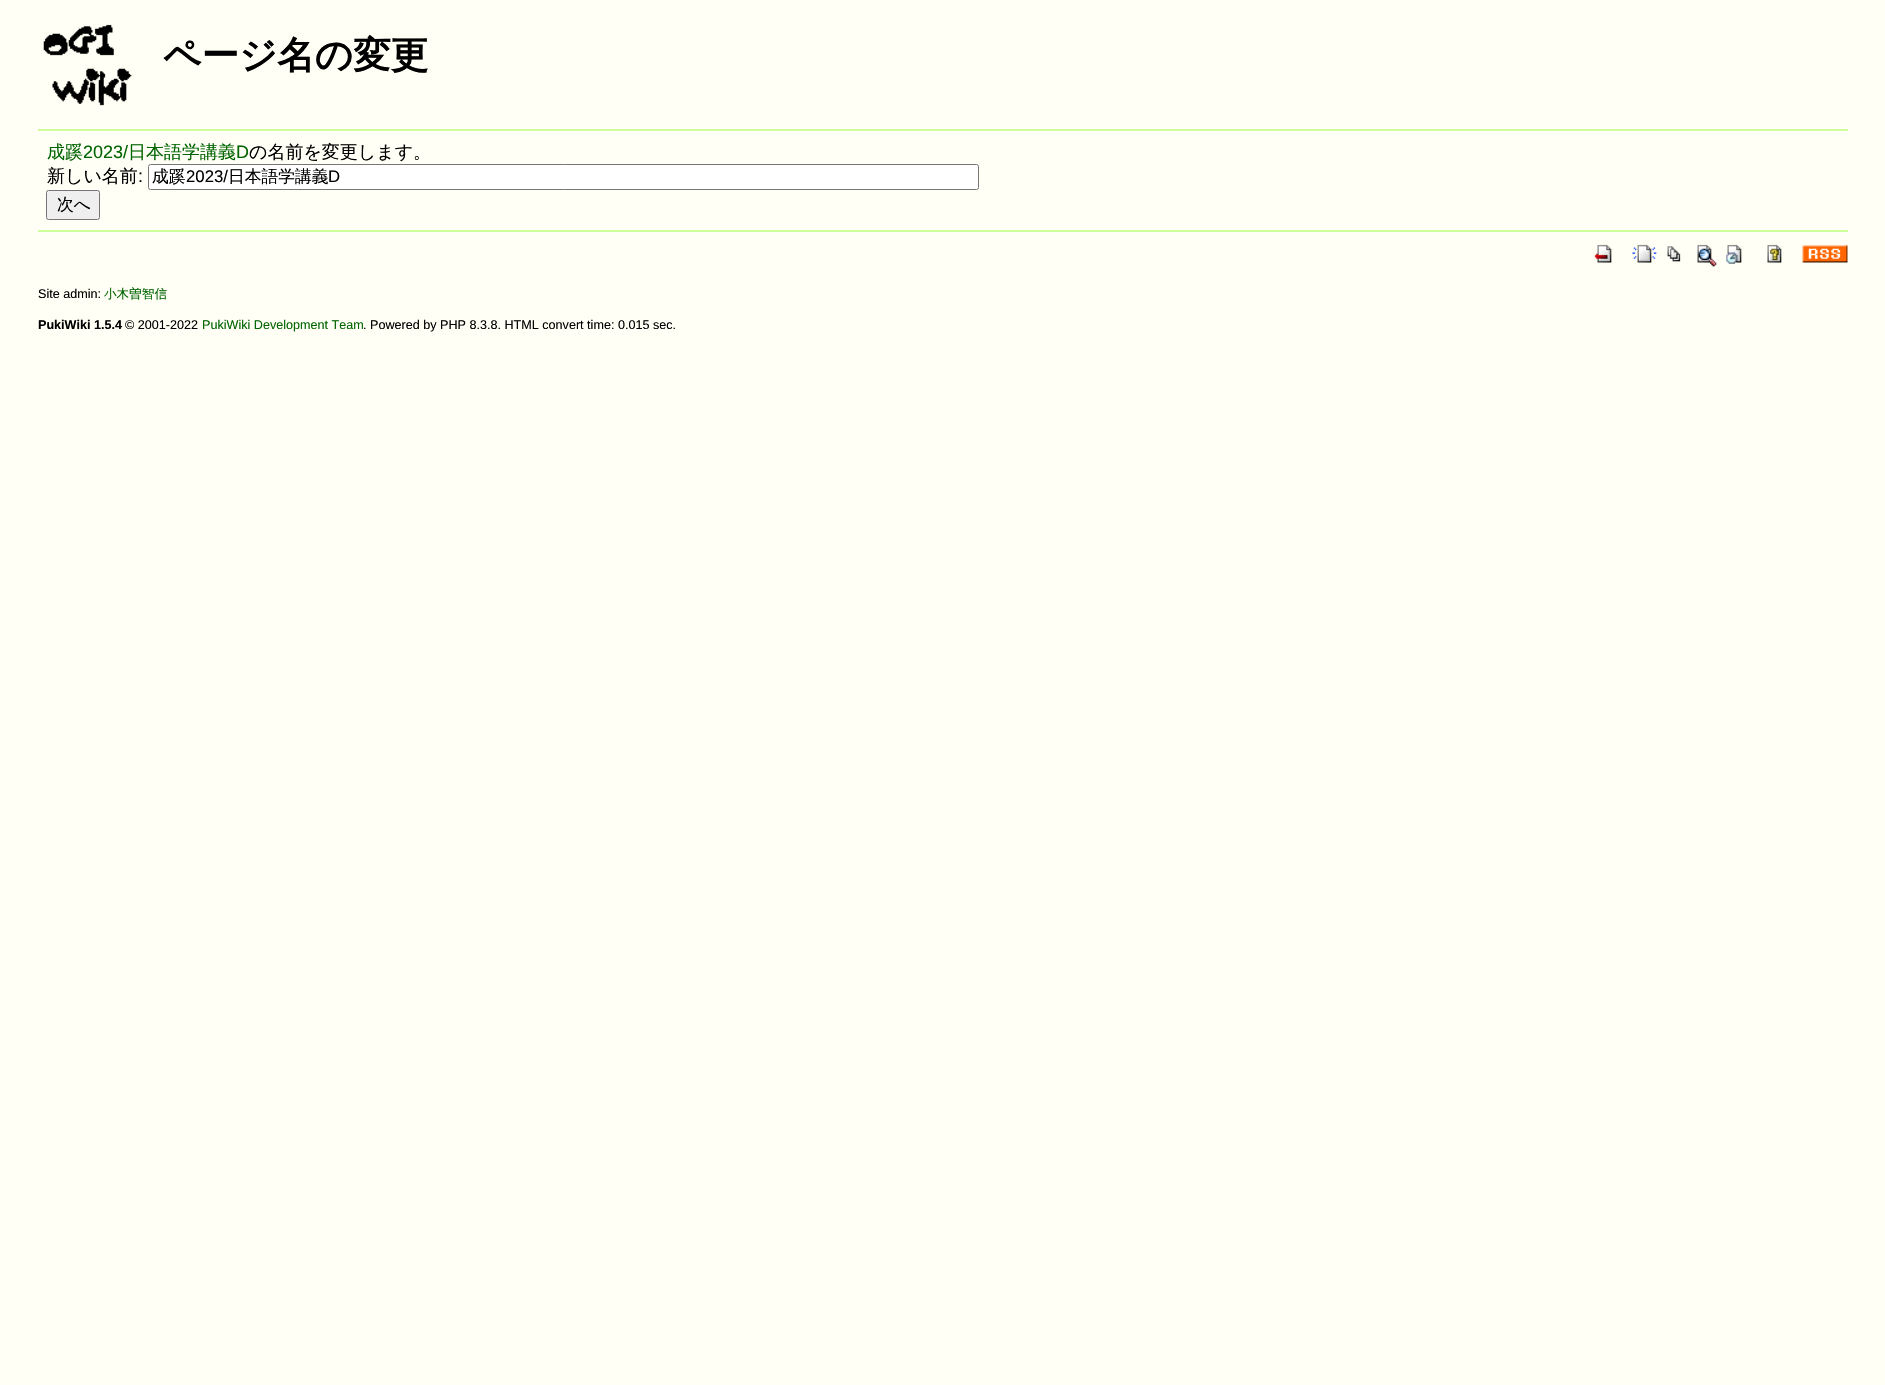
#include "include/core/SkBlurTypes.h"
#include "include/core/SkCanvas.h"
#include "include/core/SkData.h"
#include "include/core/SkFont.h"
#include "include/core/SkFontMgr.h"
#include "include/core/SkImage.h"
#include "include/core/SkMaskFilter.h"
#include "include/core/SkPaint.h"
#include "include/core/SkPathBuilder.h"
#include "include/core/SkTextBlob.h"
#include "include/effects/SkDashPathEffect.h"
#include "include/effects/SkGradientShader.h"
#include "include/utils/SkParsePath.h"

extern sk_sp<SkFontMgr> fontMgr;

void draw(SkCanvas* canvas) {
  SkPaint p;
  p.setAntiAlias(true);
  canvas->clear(SkColorSetRGB(255, 255, 245));
  canvas->drawImageRect(SkImages::DeferredFromEncodedData(SkData::MakeFromFileName("images/1.png")), SkRect::MakeLTRB(43, 24, 132, 106), SkSamplingOptions());
  p.setColor(SkColorSetRGB(204, 255, 153));
  canvas->drawRect(SkRect::MakeLTRB(38, 129, 1848, 131), p);
  p.setColor(SK_ColorWHITE);
  canvas->drawRoundRect(SkRect::MakeLTRB(148.5f, 164.5f, 978.5f, 189.5f), 2, 2, p);
  p.setStyle(SkPaint::kStroke_Style);
  p.setStrokeWidth(1);
  p.setColor(SkColorSetRGB(118, 118, 118));
  canvas->drawRoundRect(SkRect::MakeLTRB(148.5f, 164.5f, 978.5f, 189.5f), 2, 2, p);
  p.setStyle(SkPaint::kFill_Style);
  p.setColor(SkColorSetRGB(239, 239, 239));
  canvas->drawRoundRect(SkRect::MakeLTRB(46.5f, 190.5f, 99.5f, 219.5f), 2, 2, p);
  p.setStyle(SkPaint::kStroke_Style);
  p.setColor(SkColorSetRGB(118, 118, 118));
  canvas->drawRoundRect(SkRect::MakeLTRB(46.5f, 190.5f, 99.5f, 219.5f), 2, 2, p);
  p.setStyle(SkPaint::kFill_Style);
  p.setColor(SkColorSetRGB(204, 255, 153));
  canvas->drawRect(SkRect::MakeLTRB(38, 230, 1848, 232), p);
  canvas->drawImageRect(SkImages::DeferredFromEncodedData(SkData::MakeFromFileName("images/2.png")), SkRect::MakeLTRB(1594, 244, 1612, 263), SkSamplingOptions());
  canvas->drawImageRect(SkImages::DeferredFromEncodedData(SkData::MakeFromFileName("images/3.png")), SkRect::MakeLTRB(1632, 244, 1657, 263), SkSamplingOptions());
  canvas->drawImageRect(SkImages::DeferredFromEncodedData(SkData::MakeFromFileName("images/4.png")), SkRect::MakeLTRB(1667, 246, 1681, 262), SkSamplingOptions());
  canvas->drawImageRect(SkImages::DeferredFromEncodedData(SkData::MakeFromFileName("images/5.png")), SkRect::MakeLTRB(1697, 244, 1717, 267), SkSamplingOptions());
  canvas->drawImageRect(SkImages::DeferredFromEncodedData(SkData::MakeFromFileName("images/6.png")), SkRect::MakeLTRB(1726, 244, 1742, 264), SkSamplingOptions());
  canvas->drawImageRect(SkImages::DeferredFromEncodedData(SkData::MakeFromFileName("images/7.png")), SkRect::MakeLTRB(1767, 244, 1782, 263), SkSamplingOptions());
  canvas->drawImageRect(SkImages::DeferredFromEncodedData(SkData::MakeFromFileName("images/8.png")), SkRect::MakeLTRB(1802, 245, 1848, 263), SkSamplingOptions());
  SkFont font1(fontMgr->matchFamilyStyle("WenQuanYi Zen Hei", SkFontStyle::Bold()), 37.5f);
  font1.setSubpixel(true);
  p.setColor(SK_ColorBLACK);
  canvas->drawString("ページ名の変更", 163, 68, font1, p);
  SkFont font2(fontMgr->matchFamilyStyle("WenQuanYi Zen Hei", SkFontStyle(500, SkFontStyle::kNormal_Width, SkFontStyle::kUpright_Slant)), 18);
  font2.setSubpixel(true);
  p.setColor(SkColorSetRGB(0, 100, 0));
  canvas->drawString("成蹊", 47, 158, font2, p);
  SkFont font3(fontMgr->matchFamilyStyle("Liberation Sans", SkFontStyle::Normal()), 18);
  font3.setSubpixel(true);
  canvas->drawString("2023/", 83, 158, font3, p);
  canvas->drawString("日本語学講義", 128, 158, font2, p);
  canvas->drawString("D", 236, 158, font3, p);
  p.setColor(SK_ColorBLACK);
  canvas->drawString("の名前を変更します。", 249, 158, font2, p);
  canvas->drawString("新しい名前", 47, 182, font2, p);
  canvas->drawString(":", 138, 182, font3, p);
  SkFont font4(fontMgr->matchFamilyStyle("WenQuanYi Zen Hei", SkFontStyle(500, SkFontStyle::kNormal_Width, SkFontStyle::kUpright_Slant)), 16.75f);
  font4.setSubpixel(true);
  canvas->drawString("成蹊", 152, 182, font4, p);
  SkFont font5(fontMgr->matchFamilyStyle("Liberation Sans", SkFontStyle::Normal()), 16.75f);
  font5.setSubpixel(true);
  canvas->drawString("2023/", 186, 182, font5, p);
  canvas->drawString("日本語学講義", 228, 182, font4, p);
  canvas->drawString("D", 328, 182, font5, p);
  canvas->drawString("次へ", 57, 210, font4, p);
  SkFont font6(fontMgr->matchFamilyStyle("Liberation Sans", SkFontStyle::Normal()), 12.6f);
  font6.setSubpixel(true);
  canvas->drawString("Site admin:", 38, 298, font6, p);
  SkFont font7(fontMgr->matchFamilyStyle("WenQuanYi Zen Hei", SkFontStyle(500, SkFontStyle::kNormal_Width, SkFontStyle::kUpright_Slant)), 12.6f);
  font7.setSubpixel(true);
  p.setColor(SkColorSetRGB(0, 100, 0));
  canvas->drawString("小木曽智信", 104, 298, font7, p);
  SkFont font8(fontMgr->matchFamilyStyle("Liberation Sans", SkFontStyle::Bold()), 12.6f);
  font8.setSubpixel(true);
  p.setColor(SK_ColorBLACK);
  canvas->drawString("PukiWiki 1.5.4", 38, 329, font8, p);
  canvas->drawString("© 2001-2022", 125, 329, font6, p);
  p.setColor(SkColorSetRGB(0, 100, 0));
  canvas->drawString("PukiWiki Development Team", 202, 329, font6, p);
  p.setColor(SK_ColorBLACK);
  canvas->drawString(". Powered by PHP 8.3.8. HTML convert time: 0.015 sec.", 363, 329, font6, p);
}
